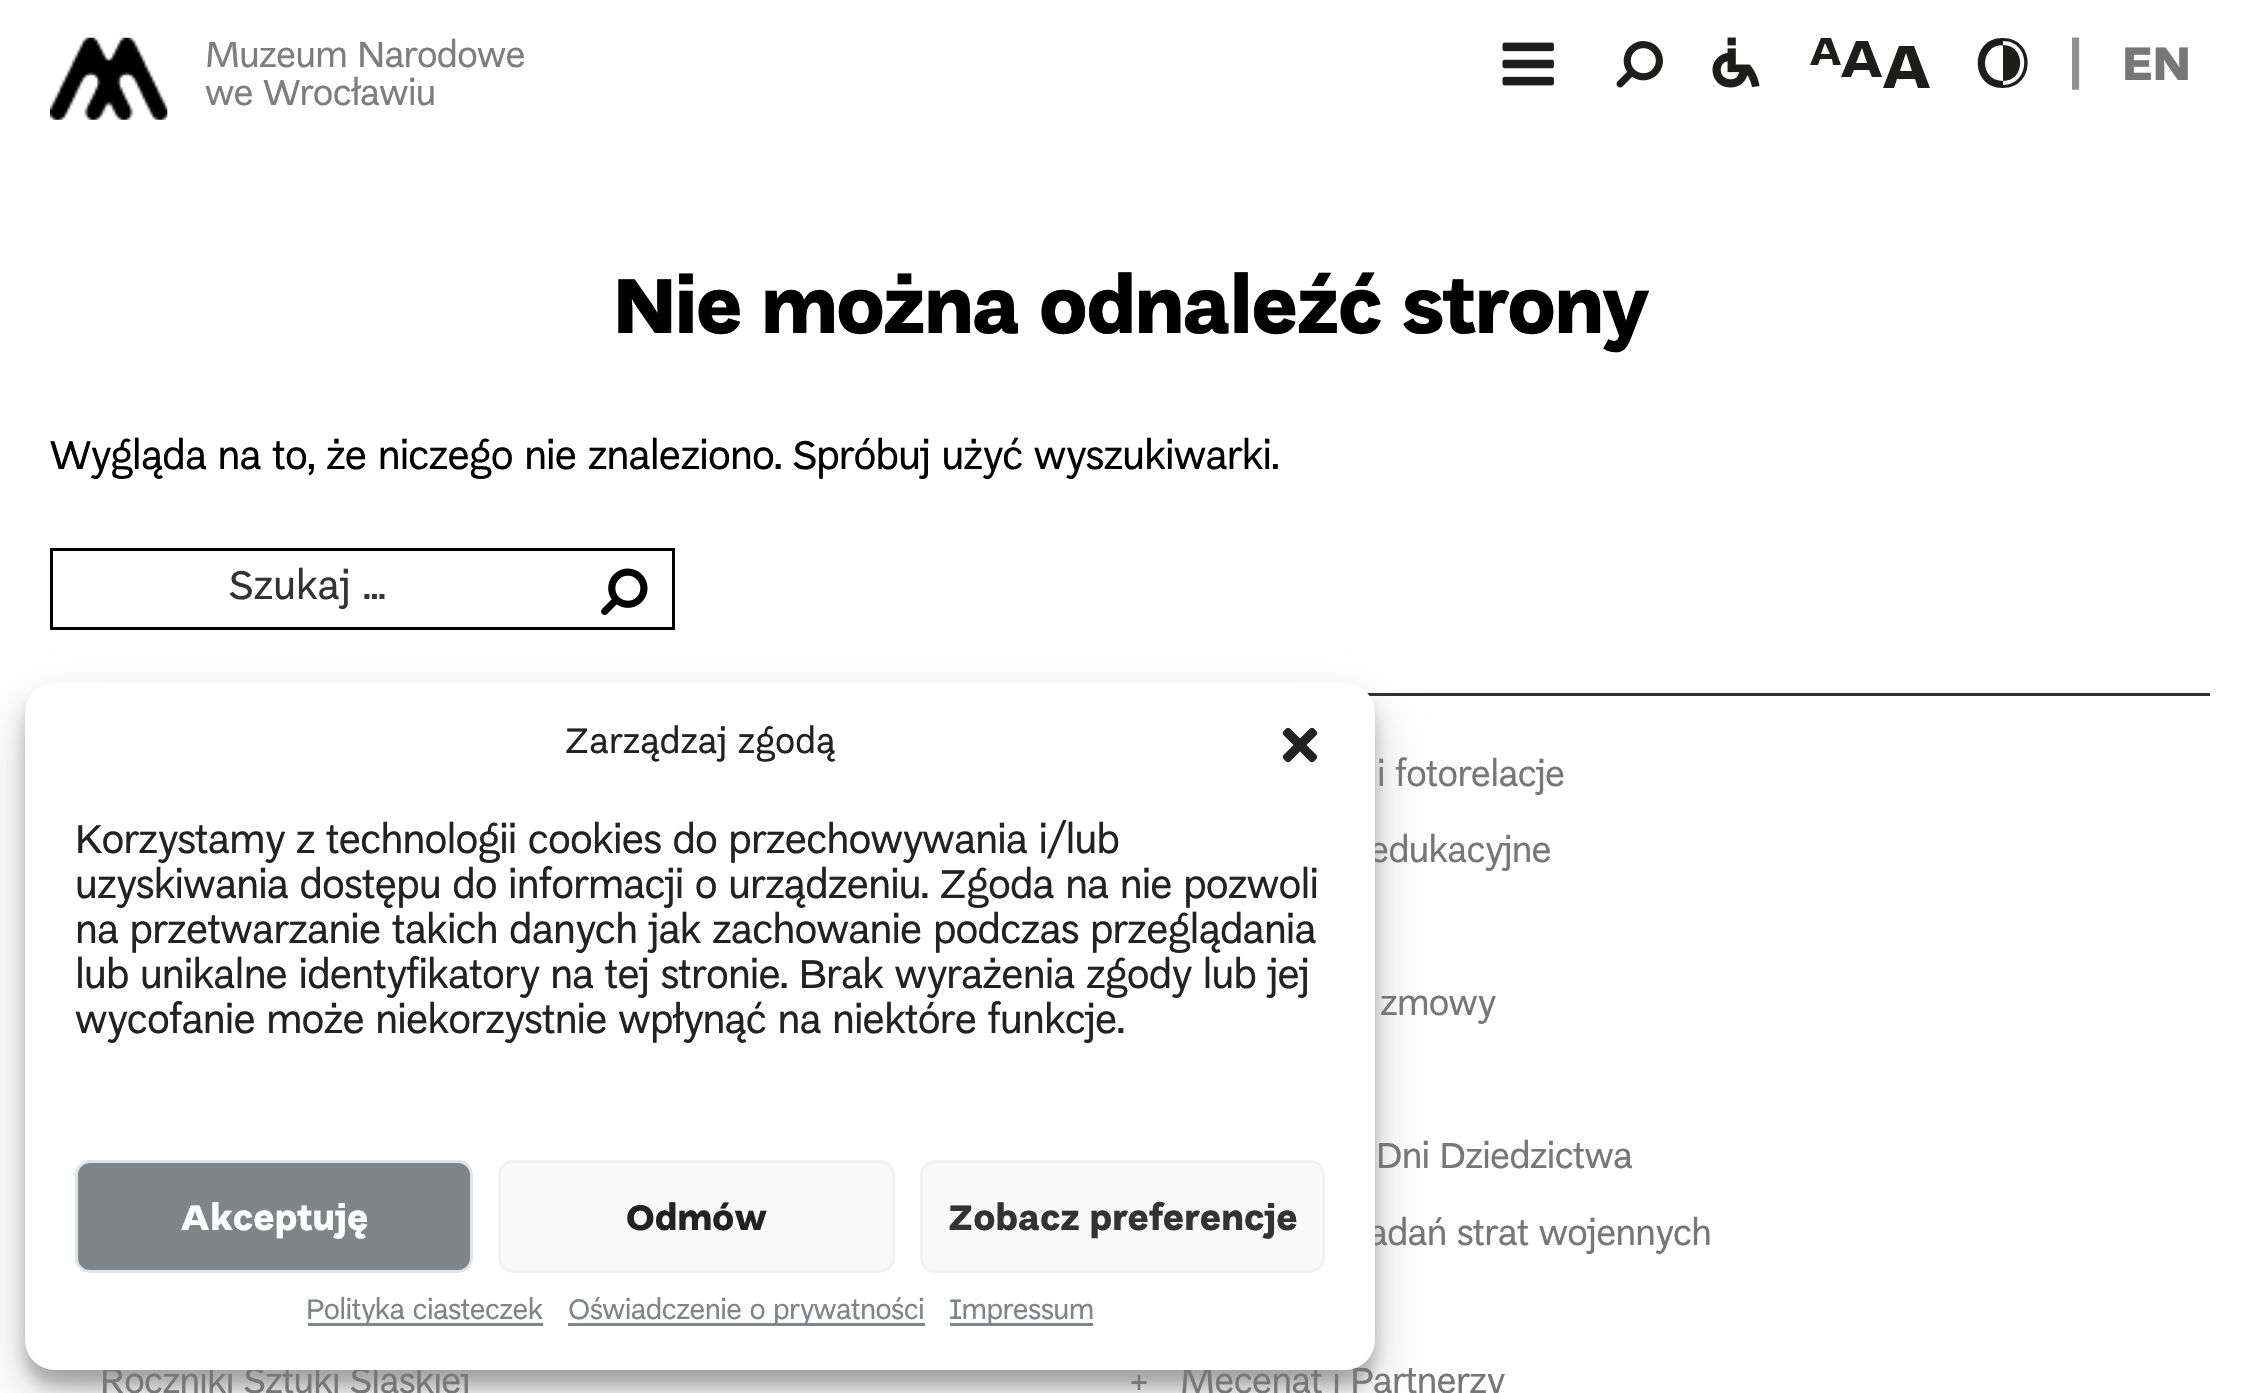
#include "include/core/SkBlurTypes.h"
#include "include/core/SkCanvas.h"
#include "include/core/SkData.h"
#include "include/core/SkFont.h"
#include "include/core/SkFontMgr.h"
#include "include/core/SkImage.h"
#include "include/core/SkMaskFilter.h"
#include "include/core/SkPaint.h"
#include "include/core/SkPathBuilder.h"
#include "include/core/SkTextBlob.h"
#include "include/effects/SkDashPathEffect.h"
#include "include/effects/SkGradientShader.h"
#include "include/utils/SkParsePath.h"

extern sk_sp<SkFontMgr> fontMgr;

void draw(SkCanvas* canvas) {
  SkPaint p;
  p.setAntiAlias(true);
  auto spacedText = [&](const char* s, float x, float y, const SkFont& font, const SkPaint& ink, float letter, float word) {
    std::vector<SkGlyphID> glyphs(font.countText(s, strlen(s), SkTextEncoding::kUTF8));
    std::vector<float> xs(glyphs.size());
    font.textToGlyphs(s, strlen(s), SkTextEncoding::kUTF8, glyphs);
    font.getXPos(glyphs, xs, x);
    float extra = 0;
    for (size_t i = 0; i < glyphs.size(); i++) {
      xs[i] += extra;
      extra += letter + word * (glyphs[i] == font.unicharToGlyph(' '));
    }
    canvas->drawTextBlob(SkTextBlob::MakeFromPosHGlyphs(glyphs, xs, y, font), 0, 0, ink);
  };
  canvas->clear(SK_ColorWHITE);
  canvas->drawImageRect(SkImages::DeferredFromEncodedData(SkData::MakeFromFileName("images/1.png")), SkRect::MakeLTRB(50, 37, 168, 120), SkSamplingOptions());
  canvas->drawImageRect(SkImages::DeferredFromEncodedData(SkData::MakeFromFileName("images/2.png")), SkRect::MakeLTRB(1502, 42, 1554, 86), SkSamplingOptions());
  canvas->drawImageRect(SkImages::DeferredFromEncodedData(SkData::MakeFromFileName("images/3.png")), SkRect::MakeLTRB(1616, 41, 1663, 88), SkSamplingOptions());
  canvas->drawImageRect(SkImages::DeferredFromEncodedData(SkData::MakeFromFileName("images/4.png")), SkRect::MakeLTRB(1712, 37, 1760, 88), SkSamplingOptions());
  p.setColor(SkColorSetRGB(29, 29, 27));
  canvas->drawPath(SkPathBuilder().moveTo(1856, 63).lineTo(1862, 48).lineTo(1867, 63).close().moveTo(1872, 77).lineTo(1882, 77).lineTo(1868, 41).lineTo(1856, 41).lineTo(1841, 77).lineTo(1851, 77).lineTo(1854, 70).lineTo(1869, 70).close().moveTo(1900, 71).lineTo(1906, 53).lineTo(1912, 71).close().moveTo(1918, 88).lineTo(1930, 88).lineTo(1914, 46).lineTo(1899, 46).lineTo(1883, 88).lineTo(1894, 88).lineTo(1897, 79).lineTo(1915, 79).close().moveTo(1821, 54).lineTo(1825, 43).lineTo(1830, 54).close().moveTo(1833, 65).lineTo(1841, 65).lineTo(1831, 38).lineTo(1821, 38).lineTo(1810, 65).lineTo(1818, 65).lineTo(1820, 59).lineTo(1832, 59).close().detach(), p);
  canvas->drawPath(SkPathBuilder().moveTo(2003, 85).cubicTo(2031, 85, 2032, 41, 2003, 41).close().moveTo(2003, 88).cubicTo(1969, 88, 1970, 37, 2003, 38).cubicTo(2036, 38, 2036, 88, 2003, 88).close().moveTo(2003, 45).cubicTo(1979, 45, 1979, 81, 2003, 81).cubicTo(2026, 81, 2026, 45, 2003, 45).close().detach(), p);
  p.setStyle(SkPaint::kStroke_Style);
  p.setStrokeWidth(3);
  p.setColor(SK_ColorBLACK);
  canvas->drawRect(SkRect::MakeLTRB(51.5f, 549.5f, 673.5f, 628.5f), p);
  canvas->drawImageRect(SkImages::DeferredFromEncodedData(SkData::MakeFromFileName("images/5.png")), SkRect::MakeLTRB(601, 568, 648, 615), SkSamplingOptions());
  p.setStyle(SkPaint::kFill_Style);
  p.setColor(SkColorSetRGB(49, 49, 49));
  canvas->drawRect(SkRect::MakeLTRB(1367, 693, 2210, 696), p);
  p.setColor(SkColorSetARGB(59, 0, 0, 0));
  p.setMaskFilter(SkMaskFilter::MakeBlur(kNormal_SkBlurStyle, 7.5f));
  canvas->drawRoundRect(SkRect::MakeLTRB(25, 698, 1375, 1385), 30, 30, p);
  p.setMaskFilter(nullptr);
  p.setColor(SkColorSetARGB(48, 0, 0, 0));
  p.setMaskFilter(SkMaskFilter::MakeBlur(kNormal_SkBlurStyle, 25));
  canvas->drawRoundRect(SkRect::MakeLTRB(25, 708, 1375, 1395), 30, 30, p);
  p.setMaskFilter(nullptr);
  SkFont font1(fontMgr->matchFamilyStyle("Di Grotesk", SkFontStyle::Normal()), 38.25f);
  font1.setSubpixel(true);
  p.setColor(SkColorSetRGB(126, 126, 126));
  spacedText("Muzeum Narodowe", 205, 67, font1, p, -0.75f, 0);
  spacedText("we Wrocławiu", 205, 105, font1, p, -0.75f, 0);
  SkFont font2(fontMgr->matchFamilyStyle("Di Grotesk", SkFontStyle::Bold()), 50);
  font2.setSubpixel(true);
  p.setColor(SkColorSetRGB(144, 144, 144));
  canvas->drawString("|", 2069, 80, font2, p);
  p.setColor(SkColorSetRGB(119, 119, 119));
  spacedText("EN", 2122, 80, font2, p, -1, 0);
  SkFont font3(fontMgr->matchFamilyStyle("Di Grotesk", SkFontStyle::Bold()), 82.5f);
  font3.setSubpixel(true);
  p.setColor(SK_ColorBLACK);
  spacedText("Nie można odnaleźć strony", 613, 333, font3, p, -1.65f, 0);
  SkFont font4(fontMgr->matchFamilyStyle("Di Grotesk", SkFontStyle::Normal()), 42.5f);
  font4.setSubpixel(true);
  spacedText("Wygląda na to, że niczego nie znaleziono. Spróbuj użyć wyszukiwarki.", 50, 469, font4, p, -0.85f, 0);
  p.setColor(SkColorSetRGB(51, 51, 51));
  canvas->drawString("Szukaj …", 229, 599, font4, p);
  p.setColor(SkColorSetRGB(119, 119, 119));
  spacedText("i fotorelacje", 1377, 786, font1, p, -0.75f, 0);
  spacedText("edukacyjne", 1369, 862, font1, p, -0.75f, 0);
  spacedText("zmowy", 1380, 1015, font1, p, -0.75f, 0);
  spacedText("Dni Dziedzictwa", 1376, 1168, font1, p, -0.75f, 0);
  spacedText("adań strat wojennych", 1368, 1245, font1, p, -0.75f, 0);
  spacedText("Roczniki Sztuki Śląskiej", 100, 1393, font1, p, -0.75f, 0);
  canvas->drawString("+", 1130, 1393, font1, p);
  spacedText("Mecenat i Partnerzy", 1180, 1393, font1, p, -0.75f, 0);
  p.setColor(SK_ColorWHITE);
  canvas->drawRoundRect(SkRect::MakeLTRB(25, 683, 1375, 1370), 30, 30, p);
  SkFont font5(fontMgr->matchFamilyStyle("Di Grotesk", SkFontStyle::Normal()), 37.5f);
  font5.setSubpixel(true);
  p.setColor(SkColorSetRGB(34, 34, 34));
  canvas->drawString("Zarządzaj zgodą", 565, 753, font5, p);
  canvas->drawImageRect(SkImages::DeferredFromEncodedData(SkData::MakeFromFileName("images/6.png")), SkRect::MakeLTRB(1282, 727, 1318, 763), SkSamplingOptions());
  canvas->save();
  canvas->clipRect(SkRect::MakeLTRB(75, 820, 1325, 1110));
  spacedText("Korzystamy z technologii cookies do przechowywania i/lub", 75, 853, font4, p, -0.85f, 0);
  canvas->restore();
  spacedText("uzyskiwania dostępu do informacji o urządzeniu. Zgoda na nie pozwoli", 75, 898, font4, p, -0.85f, 0);
  spacedText("na przetwarzanie takich danych jak zachowanie podczas przeglądania", 75, 943, font4, p, -0.85f, 0);
  spacedText("lub unikalne identyfikatory na tej stronie. Brak wyrażenia zgody lub jej", 75, 988, font4, p, -0.85f, 0);
  spacedText("wycofanie może niekorzystnie wpłynąć na niektóre funkcje.", 75, 1033, font4, p, -0.85f, 0);
  p.setColor(SkColorSetRGB(129, 133, 136));
  canvas->drawRoundRect(SkRect::MakeLTRB(76.5f, 1161.5f, 471.5f, 1271.5f), 13.5f, 13.5f, p);
  p.setStyle(SkPaint::kStroke_Style);
  p.setColor(SkColorSetRGB(225, 228, 230));
  canvas->drawRoundRect(SkRect::MakeLTRB(76.5f, 1161.5f, 471.5f, 1271.5f), 13.5f, 13.5f, p);
  SkFont font6(fontMgr->matchFamilyStyle("Di Grotesk", SkFontStyle::Bold()), 37.5f);
  font6.setSubpixel(true);
  p.setStyle(SkPaint::kFill_Style);
  p.setColor(SK_ColorWHITE);
  canvas->drawString("Akceptuję", 180, 1230, font6, p);
  p.setColor(SkColorSetRGB(249, 249, 249));
  canvas->drawRoundRect(SkRect::MakeLTRB(499.5f, 1161.5f, 893.5f, 1271.5f), 13.5f, 13.5f, p);
  p.setStyle(SkPaint::kStroke_Style);
  p.setColor(SkColorSetRGB(242, 242, 242));
  canvas->drawRoundRect(SkRect::MakeLTRB(499.5f, 1161.5f, 893.5f, 1271.5f), 13.5f, 13.5f, p);
  p.setStyle(SkPaint::kFill_Style);
  p.setColor(SkColorSetRGB(34, 34, 34));
  canvas->drawString("Odmów", 626, 1230, font6, p);
  p.setColor(SkColorSetRGB(249, 249, 249));
  canvas->drawRoundRect(SkRect::MakeLTRB(921.5f, 1161.5f, 1323.5f, 1271.5f), 13.5f, 13.5f, p);
  p.setStyle(SkPaint::kStroke_Style);
  p.setColor(SkColorSetRGB(242, 242, 242));
  canvas->drawRoundRect(SkRect::MakeLTRB(921.5f, 1161.5f, 1323.5f, 1271.5f), 13.5f, 13.5f, p);
  p.setStyle(SkPaint::kFill_Style);
  p.setColor(SkColorSetRGB(51, 51, 51));
  canvas->drawString("Zobacz preferencje", 948, 1230, font6, p);
  p.setColor(SkColorSetRGB(129, 133, 136));
  canvas->drawRect(SkRect::MakeLTRB(308, 1323, 543, 1326), p);
  SkFont font7(fontMgr->matchFamilyStyle("Di Grotesk", SkFontStyle::Normal()), 30);
  font7.setSubpixel(true);
  spacedText("Polityka ciasteczek", 306, 1319, font7, p, -0.6f, 0);
  canvas->drawRect(SkRect::MakeLTRB(568, 1323, 925, 1326), p);
  spacedText("Oświadczenie o prywatności", 568, 1319, font7, p, -0.6f, 0);
  canvas->drawRect(SkRect::MakeLTRB(950, 1323, 1093, 1326), p);
  spacedText("Impressum", 949, 1319, font7, p, -0.6f, 0);
}
